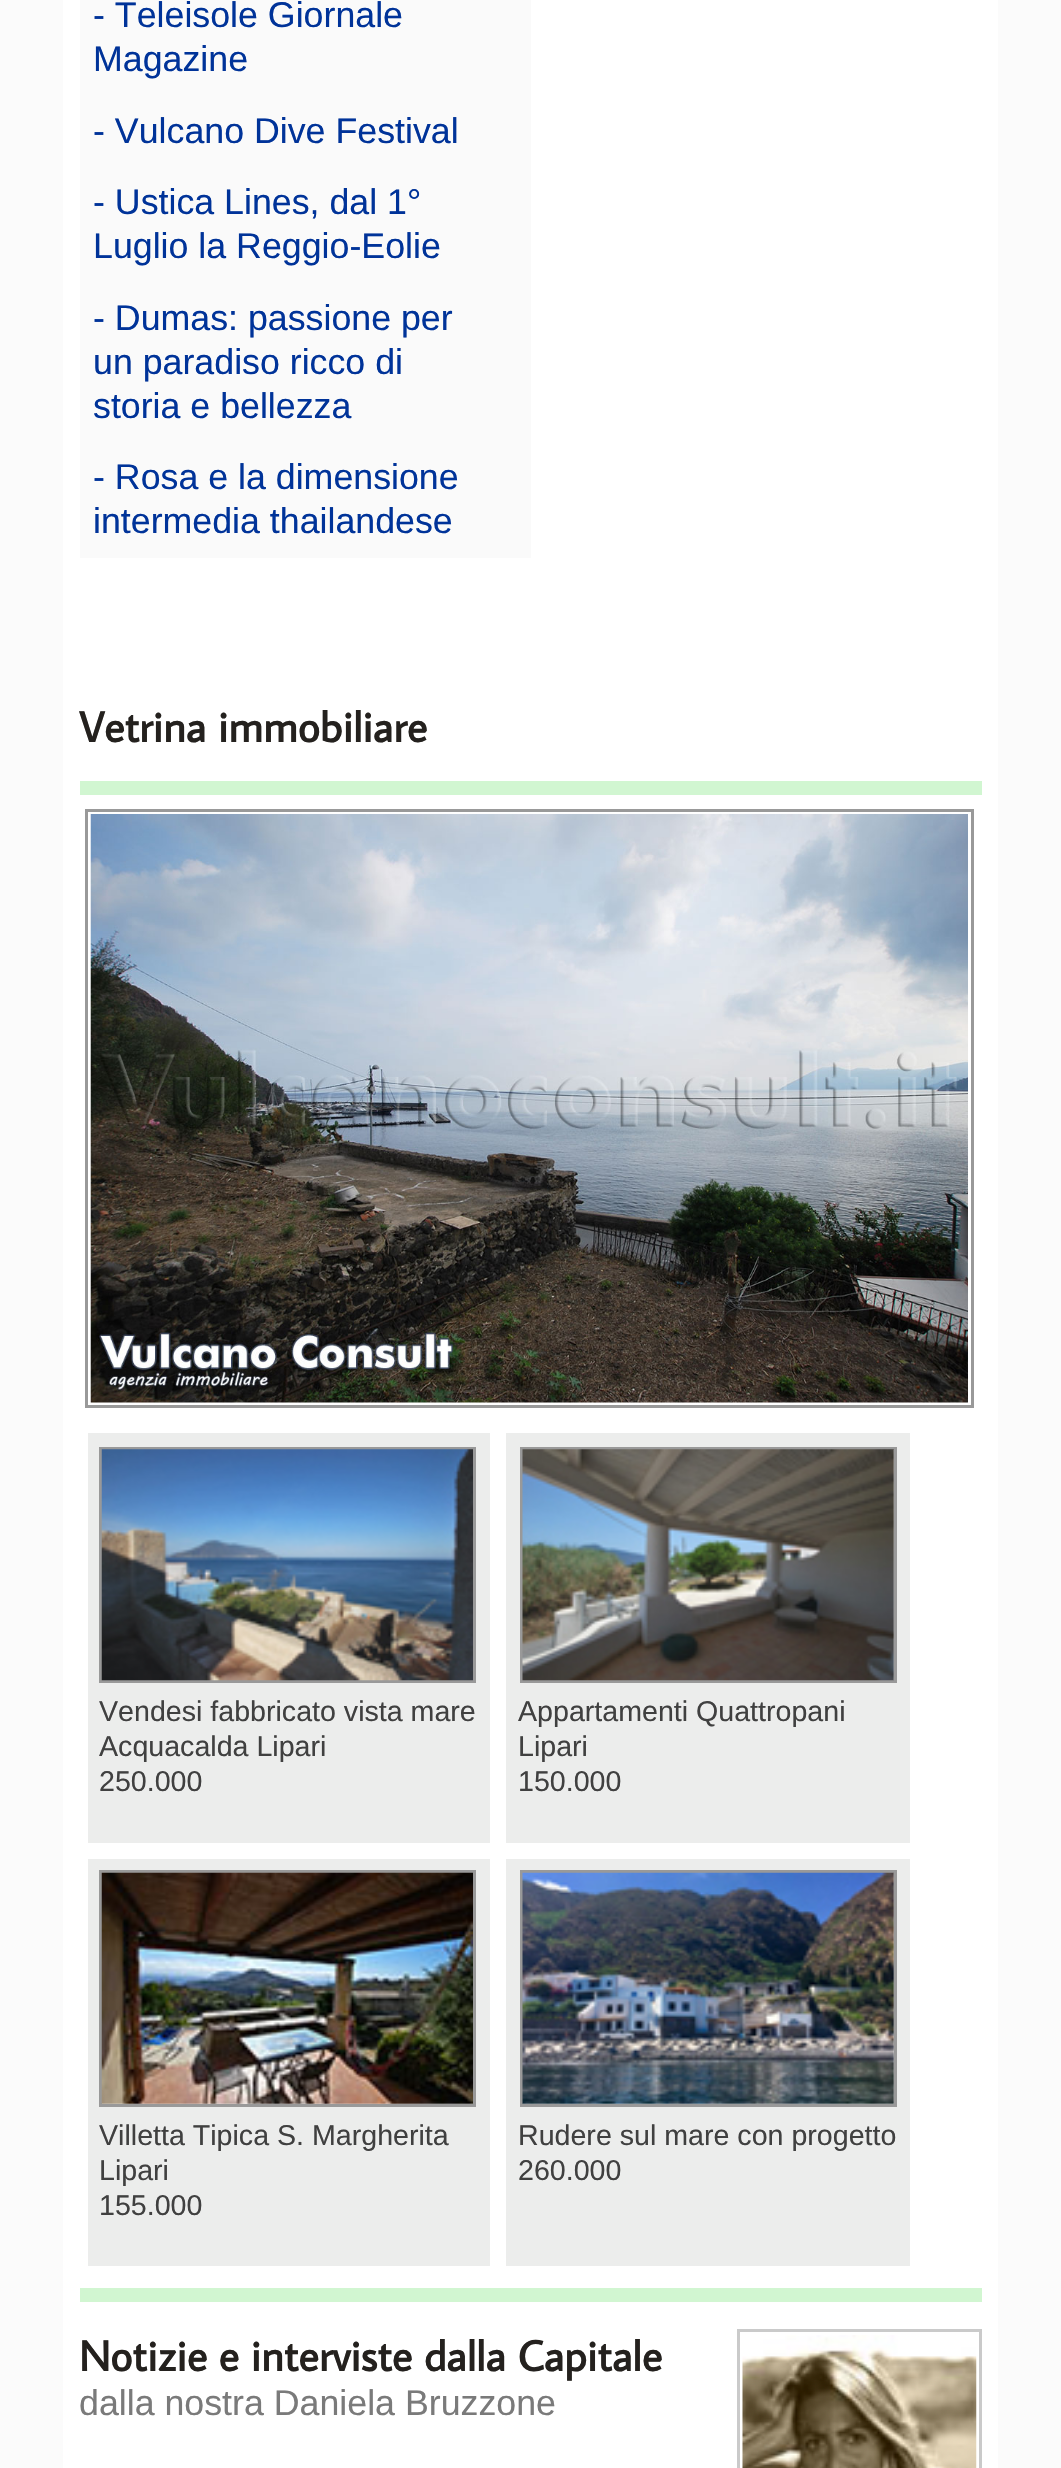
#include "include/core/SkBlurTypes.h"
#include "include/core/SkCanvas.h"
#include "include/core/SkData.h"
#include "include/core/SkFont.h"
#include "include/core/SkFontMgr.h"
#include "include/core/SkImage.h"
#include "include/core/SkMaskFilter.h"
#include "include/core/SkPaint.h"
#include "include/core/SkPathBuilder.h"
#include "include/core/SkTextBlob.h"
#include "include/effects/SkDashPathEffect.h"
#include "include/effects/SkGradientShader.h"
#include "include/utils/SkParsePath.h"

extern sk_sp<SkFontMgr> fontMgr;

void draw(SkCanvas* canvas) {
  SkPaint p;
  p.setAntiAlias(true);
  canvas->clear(SkColorSetRGB(251, 251, 251));
  p.setColor(SK_ColorWHITE);
  canvas->drawRect(SkRect::MakeLTRB(63, 0, 998, 2468), p);
  p.setColor(SkColorSetRGB(250, 250, 250));
  canvas->drawRect(SkRect::MakeLTRB(80, 0, 531, 558), p);
  p.setColor(SkColorSetRGB(209, 246, 209));
  canvas->drawRect(SkRect::MakeLTRB(80, 781, 982, 795), p);
  p.setStyle(SkPaint::kStroke_Style);
  p.setStrokeWidth(3);
  p.setColor(SkColorSetRGB(153, 153, 153));
  canvas->drawRect(SkRect::MakeLTRB(86.5f, 810.5f, 972.5f, 1406.5f), p);
  canvas->drawImageRect(SkImages::DeferredFromEncodedData(SkData::MakeFromFileName("images/1.png")), SkRect::MakeLTRB(90, 814, 968, 1403), SkSamplingOptions());
  p.setStyle(SkPaint::kFill_Style);
  p.setColor(SkColorSetRGB(236, 237, 236));
  canvas->drawRect(SkRect::MakeLTRB(88, 1433, 490, 1843), p);
  p.setStyle(SkPaint::kStroke_Style);
  p.setColor(SkColorSetRGB(153, 153, 153));
  canvas->drawRect(SkRect::MakeLTRB(100.5f, 1448.5f, 474.5f, 1681.5f), p);
  canvas->drawImageRect(SkImages::DeferredFromEncodedData(SkData::MakeFromFileName("images/2.png")), SkRect::MakeLTRB(101, 1449, 473, 1681), SkSamplingOptions());
  p.setStyle(SkPaint::kFill_Style);
  p.setColor(SkColorSetRGB(236, 237, 236));
  canvas->drawRect(SkRect::MakeLTRB(506, 1433, 910, 1843), p);
  p.setStyle(SkPaint::kStroke_Style);
  p.setColor(SkColorSetRGB(153, 153, 153));
  canvas->drawRect(SkRect::MakeLTRB(521.5f, 1448.5f, 895.5f, 1681.5f), p);
  canvas->drawImageRect(SkImages::DeferredFromEncodedData(SkData::MakeFromFileName("images/3.png")), SkRect::MakeLTRB(522, 1449, 894, 1681), SkSamplingOptions());
  p.setStyle(SkPaint::kFill_Style);
  p.setColor(SkColorSetRGB(236, 237, 236));
  canvas->drawRect(SkRect::MakeLTRB(88, 1859, 490, 2266), p);
  p.setStyle(SkPaint::kStroke_Style);
  p.setColor(SkColorSetRGB(153, 153, 153));
  canvas->drawRect(SkRect::MakeLTRB(100.5f, 1871.5f, 474.5f, 2105.5f), p);
  canvas->drawImageRect(SkImages::DeferredFromEncodedData(SkData::MakeFromFileName("images/4.png")), SkRect::MakeLTRB(101, 1872, 473, 2104), SkSamplingOptions());
  p.setStyle(SkPaint::kFill_Style);
  p.setColor(SkColorSetRGB(236, 237, 236));
  canvas->drawRect(SkRect::MakeLTRB(506, 1859, 910, 2266), p);
  p.setStyle(SkPaint::kStroke_Style);
  p.setColor(SkColorSetRGB(153, 153, 153));
  canvas->drawRect(SkRect::MakeLTRB(521.5f, 1871.5f, 895.5f, 2105.5f), p);
  canvas->drawImageRect(SkImages::DeferredFromEncodedData(SkData::MakeFromFileName("images/5.png")), SkRect::MakeLTRB(522, 1872, 894, 2104), SkSamplingOptions());
  p.setStyle(SkPaint::kFill_Style);
  p.setColor(SkColorSetRGB(209, 246, 209));
  canvas->drawRect(SkRect::MakeLTRB(80, 2288, 982, 2302), p);
  p.setStyle(SkPaint::kStroke_Style);
  p.setColor(SkColorSetRGB(202, 202, 202));
  canvas->drawRect(SkRect::MakeLTRB(738.5f, 2330.5f, 980.5f, 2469.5f), p);
  canvas->drawImageRect(SkImages::DeferredFromEncodedData(SkData::MakeFromFileName("images/6.png")), SkRect::MakeLTRB(742, 2335, 977, 2468), SkSamplingOptions());
  SkFont font1(fontMgr->matchFamilyStyle("Liberation Sans", SkFontStyle::Normal()), 35.75f);
  font1.setSubpixel(true);
  p.setStyle(SkPaint::kFill_Style);
  p.setColor(SkColorSetRGB(0, 51, 153));
  canvas->drawString("- Teleisole Giornale", 93, 27, font1, p);
  canvas->drawString("Magazine", 93, 71, font1, p);
  canvas->drawString("- Vulcano Dive Festival", 93, 143, font1, p);
  canvas->drawString("- Ustica Lines, dal 1°", 93, 214, font1, p);
  canvas->drawString("Luglio la Reggio-Eolie", 93, 258, font1, p);
  canvas->drawString("- Dumas: passione per", 93, 330, font1, p);
  canvas->drawString("un paradiso ricco di", 93, 374, font1, p);
  canvas->drawString("storia e bellezza", 93, 418, font1, p);
  canvas->drawString("- Rosa e la dimensione", 93, 489, font1, p);
  canvas->drawString("intermedia thailandese", 93, 533, font1, p);
  SkFont font2(fontMgr->matchFamilyStyle("Average Sans", SkFontStyle::Bold()), 42.9f);
  font2.setSubpixel(true);
  p.setColor(SkColorSetRGB(36, 33, 30));
  canvas->drawString("Vetrina immobiliare", 79, 742, font2, p);
  SkFont font3(fontMgr->matchFamilyStyle("Liberation Sans", SkFontStyle::Normal()), 28.6f);
  font3.setSubpixel(true);
  p.setColor(SkColorSetRGB(64, 64, 64));
  canvas->drawString("Vendesi fabbricato vista mare", 99, 1721, font3, p);
  canvas->drawString("Acquacalda Lipari", 99, 1756, font3, p);
  canvas->drawString("250.000", 99, 1791, font3, p);
  canvas->drawString("Appartamenti Quattropani", 518, 1721, font3, p);
  canvas->drawString("Lipari", 518, 1756, font3, p);
  canvas->drawString("150.000", 518, 1791, font3, p);
  canvas->drawString("Villetta Tipica S. Margherita", 99, 2145, font3, p);
  canvas->drawString("Lipari", 99, 2180, font3, p);
  canvas->drawString("155.000", 99, 2215, font3, p);
  canvas->drawString("Rudere sul mare con progetto", 518, 2145, font3, p);
  canvas->drawString("260.000", 518, 2180, font3, p);
  p.setColor(SkColorSetRGB(36, 33, 30));
  canvas->drawString("Notizie e interviste dalla Capitale", 79, 2371, font2, p);
  p.setColor(SkColorSetRGB(122, 122, 122));
  canvas->drawString("dalla nostra Daniela Bruzzone", 79, 2415, font1, p);
}
